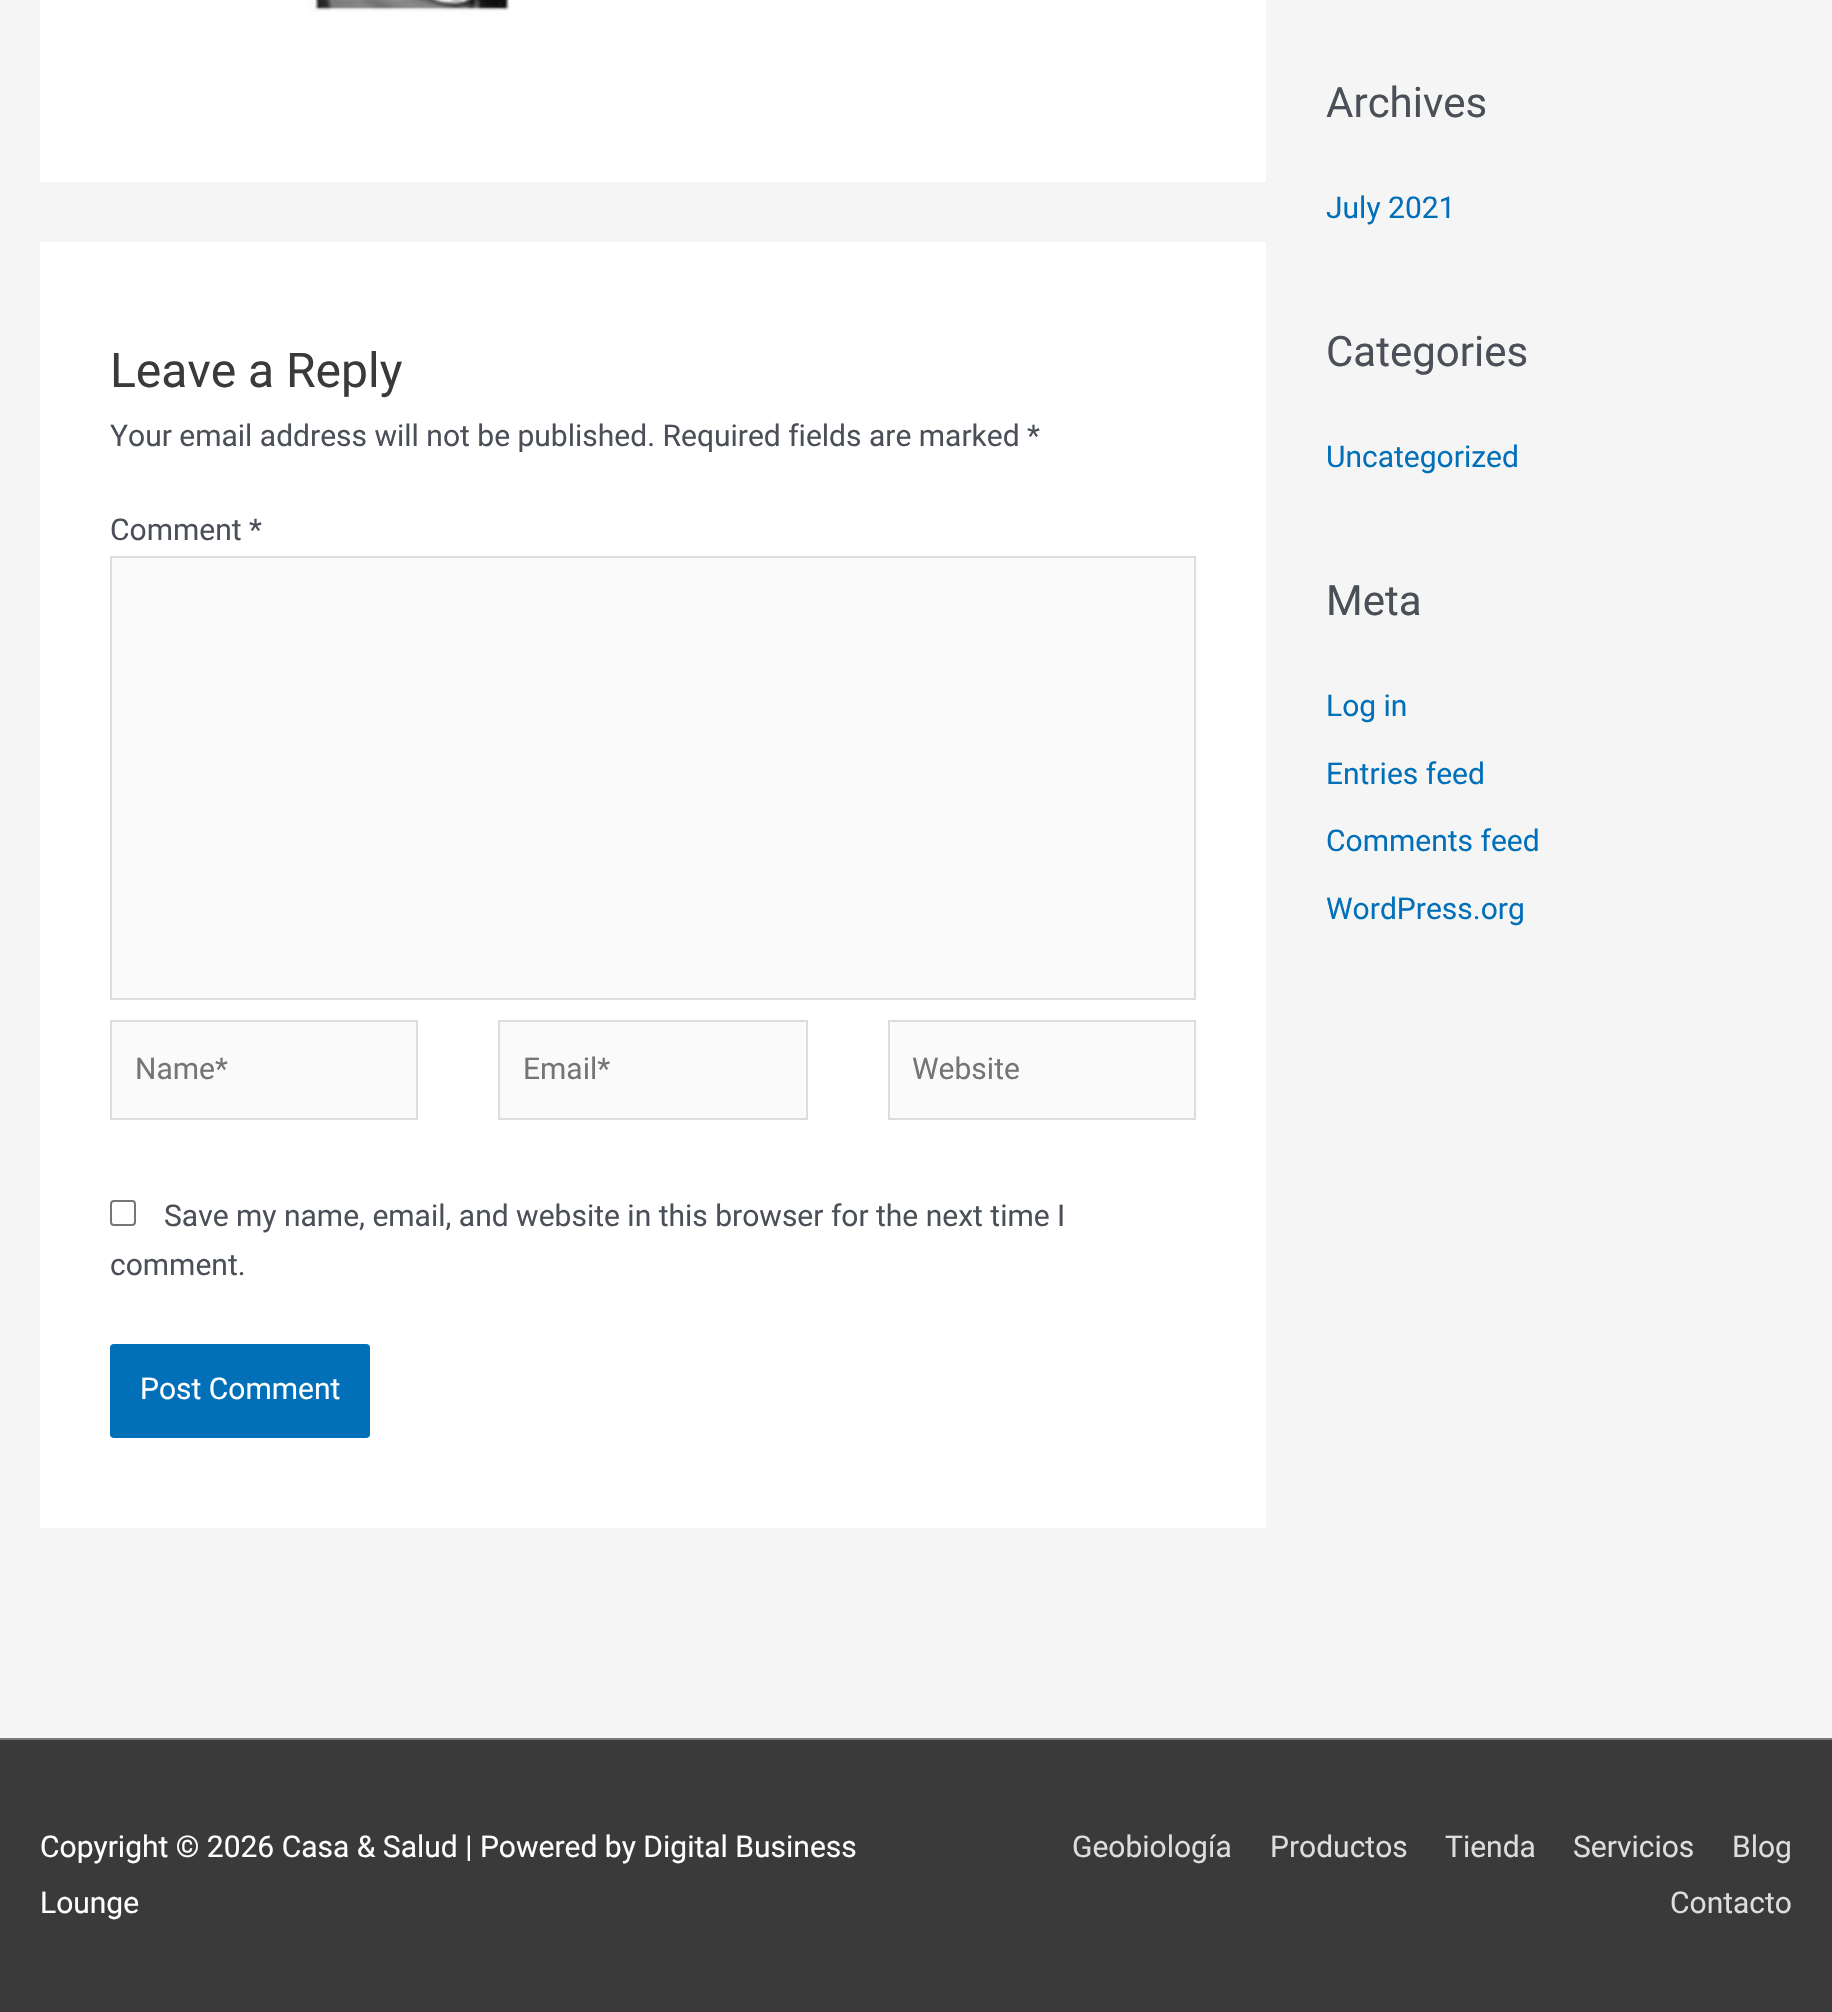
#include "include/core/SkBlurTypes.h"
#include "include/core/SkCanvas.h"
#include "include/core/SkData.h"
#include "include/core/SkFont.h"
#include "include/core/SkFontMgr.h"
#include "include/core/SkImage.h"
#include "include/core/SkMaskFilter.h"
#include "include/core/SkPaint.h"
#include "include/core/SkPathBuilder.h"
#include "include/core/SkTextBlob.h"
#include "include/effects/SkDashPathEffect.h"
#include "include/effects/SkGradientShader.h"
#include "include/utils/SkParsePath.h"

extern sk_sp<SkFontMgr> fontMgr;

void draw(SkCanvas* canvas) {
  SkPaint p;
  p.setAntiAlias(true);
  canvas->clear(SkColorSetRGB(245, 245, 245));
  p.setColor(SK_ColorWHITE);
  canvas->drawRect(SkRect::MakeLTRB(40, 0, 1266, 182), p);
  canvas->drawImageRect(SkImages::DeferredFromEncodedData(SkData::MakeFromFileName("images/1.png")), SkRect::MakeLTRB(308, 0, 511, 14), SkSamplingOptions());
  canvas->drawRect(SkRect::MakeLTRB(40, 242, 1266, 1528), p);
  p.setColor(SkColorSetRGB(250, 250, 250));
  canvas->drawRect(SkRect::MakeLTRB(111, 557, 1195, 999), p);
  p.setStyle(SkPaint::kStroke_Style);
  p.setStrokeWidth(2);
  p.setColor(SkColorSetRGB(221, 221, 221));
  canvas->drawRect(SkRect::MakeLTRB(111, 557, 1195, 999), p);
  p.setStyle(SkPaint::kFill_Style);
  p.setColor(SkColorSetRGB(250, 250, 250));
  canvas->drawRect(SkRect::MakeLTRB(111, 1021, 417, 1119), p);
  p.setStyle(SkPaint::kStroke_Style);
  p.setColor(SkColorSetRGB(221, 221, 221));
  canvas->drawRect(SkRect::MakeLTRB(111, 1021, 417, 1119), p);
  p.setStyle(SkPaint::kFill_Style);
  p.setColor(SkColorSetRGB(250, 250, 250));
  canvas->drawRect(SkRect::MakeLTRB(499, 1021, 807, 1119), p);
  p.setStyle(SkPaint::kStroke_Style);
  p.setColor(SkColorSetRGB(221, 221, 221));
  canvas->drawRect(SkRect::MakeLTRB(499, 1021, 807, 1119), p);
  p.setStyle(SkPaint::kFill_Style);
  p.setColor(SkColorSetRGB(250, 250, 250));
  canvas->drawRect(SkRect::MakeLTRB(889, 1021, 1195, 1119), p);
  p.setStyle(SkPaint::kStroke_Style);
  p.setColor(SkColorSetRGB(221, 221, 221));
  canvas->drawRect(SkRect::MakeLTRB(889, 1021, 1195, 1119), p);
  p.setColor(SkColorSetRGB(118, 118, 118));
  canvas->drawRoundRect(SkRect::MakeLTRB(111, 1201, 135, 1225), 3, 3, p);
  p.setStyle(SkPaint::kFill_Style);
  p.setColor(SkColorSetRGB(1, 112, 185));
  canvas->drawRoundRect(SkRect::MakeLTRB(110, 1344, 370, 1438), 4, 4, p);
  p.setColor(SkColorSetRGB(122, 122, 122));
  canvas->drawRect(SkRect::MakeLTRB(0, 1738, 1832, 1740), p);
  p.setColor(SkColorSetRGB(58, 58, 58));
  canvas->drawRect(SkRect::MakeLTRB(0, 1740, 1832, 2012), p);
  SkFont font1(fontMgr->matchFamilyStyle("Roboto", SkFontStyle::Normal()), 48);
  font1.setSubpixel(true);
  canvas->drawString("Leave a Reply", 110, 387, font1, p);
  SkFont font2(fontMgr->matchFamilyStyle("Roboto", SkFontStyle::Normal()), 30);
  font2.setSubpixel(true);
  p.setColor(SkColorSetRGB(75, 79, 88));
  canvas->drawString("Your email address will not be published. Required fields are marked *", 110, 446, font2, p);
  canvas->drawString("Comment *", 110, 540, font2, p);
  p.setColor(SkColorSetRGB(117, 117, 117));
  canvas->drawString("Name*", 135, 1079, font2, p);
  canvas->drawString("Email*", 523, 1079, font2, p);
  canvas->drawString("Website", 912, 1079, font2, p);
  p.setColor(SkColorSetRGB(75, 79, 88));
  canvas->drawString("Save my name, email, and website in this browser for the next time I", 164, 1226, font2, p);
  canvas->drawString("comment.", 110, 1275, font2, p);
  p.setColor(SK_ColorWHITE);
  canvas->drawString("Post Comment", 140, 1399, font2, p);
  SkFont font3(fontMgr->matchFamilyStyle("Roboto", SkFontStyle::Normal()), 42);
  font3.setSubpixel(true);
  p.setColor(SkColorSetRGB(75, 79, 88));
  canvas->drawString("Archives", 1326, 117, font3, p);
  p.setColor(SkColorSetRGB(1, 112, 185));
  canvas->drawString("July 2021", 1326, 218, font2, p);
  p.setColor(SkColorSetRGB(75, 79, 88));
  canvas->drawString("Categories", 1326, 366, font3, p);
  p.setColor(SkColorSetRGB(1, 112, 185));
  canvas->drawString("Uncategorized", 1326, 467, font2, p);
  p.setColor(SkColorSetRGB(75, 79, 88));
  canvas->drawString("Meta", 1326, 615, font3, p);
  p.setColor(SkColorSetRGB(1, 112, 185));
  canvas->drawString("Log in", 1326, 716, font2, p);
  canvas->drawString("Entries feed", 1326, 784, font2, p);
  canvas->drawString("Comments feed", 1326, 851, font2, p);
  canvas->drawString("WordPress.org", 1326, 919, font2, p);
  p.setColor(SK_ColorWHITE);
  canvas->drawString("Copyright © 2026 Casa & Salud | Powered by Digital Business", 40, 1857, font2, p);
  canvas->drawString("Lounge", 40, 1913, font2, p);
  p.setColor(SkColorSetRGB(221, 221, 221));
  canvas->drawString("Geobiología", 1072, 1857, font2, p);
  canvas->drawString("Productos", 1270, 1857, font2, p);
  canvas->drawString("Tienda", 1445, 1857, font2, p);
  canvas->drawString("Servicios", 1573, 1857, font2, p);
  canvas->drawString("Blog", 1732, 1857, font2, p);
  canvas->drawString("Contacto", 1670, 1913, font2, p);
}
